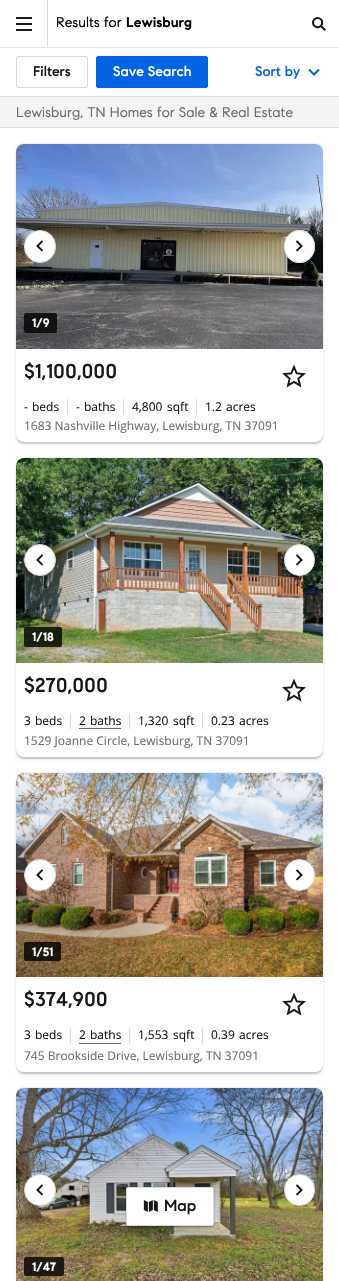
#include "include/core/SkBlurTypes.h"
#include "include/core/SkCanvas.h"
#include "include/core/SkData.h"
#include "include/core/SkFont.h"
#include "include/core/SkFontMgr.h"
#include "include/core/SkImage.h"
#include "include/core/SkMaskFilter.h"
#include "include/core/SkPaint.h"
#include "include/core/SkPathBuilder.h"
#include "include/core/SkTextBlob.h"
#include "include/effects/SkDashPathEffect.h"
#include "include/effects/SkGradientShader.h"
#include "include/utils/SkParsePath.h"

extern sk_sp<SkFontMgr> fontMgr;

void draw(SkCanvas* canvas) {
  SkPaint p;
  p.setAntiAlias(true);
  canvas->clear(SK_ColorWHITE);
  p.setColor(SkColorSetRGB(230, 230, 230));
  canvas->drawRect(SkRect::MakeLTRB(0, 47, 339, 48), p);
  p.setColor(SkColorSetRGB(217, 217, 217));
  canvas->drawRect(SkRect::MakeLTRB(47, 0, 48, 47), p);
  canvas->drawImageRect(SkImages::DeferredFromEncodedData(SkData::MakeFromFileName("images/1.png")), SkRect::MakeLTRB(16, 17, 32, 31), SkSamplingOptions());
  canvas->drawImageRect(SkImages::DeferredFromEncodedData(SkData::MakeFromFileName("images/2.png")), SkRect::MakeLTRB(312, 17, 326, 31), SkSamplingOptions());
  p.setStyle(SkPaint::kStroke_Style);
  p.setStrokeWidth(1);
  p.setColor(SkColorSetRGB(218, 218, 218));
  canvas->drawRoundRect(SkRect::MakeLTRB(16.5f, 56.5f, 87.5f, 87.5f), 1.5f, 1.5f, p);
  p.setStyle(SkPaint::kFill_Style);
  p.setColor(SkColorSetRGB(0, 100, 229));
  canvas->drawRoundRect(SkRect::MakeLTRB(96.5f, 56.5f, 207.5f, 87.5f), 1.5f, 1.5f, p);
  p.setStyle(SkPaint::kStroke_Style);
  canvas->drawRoundRect(SkRect::MakeLTRB(96.5f, 56.5f, 207.5f, 87.5f), 1.5f, 1.5f, p);
  canvas->drawImageRect(SkImages::DeferredFromEncodedData(SkData::MakeFromFileName("images/3.png")), SkRect::MakeLTRB(308, 68, 320, 76), SkSamplingOptions());
  p.setStyle(SkPaint::kFill_Style);
  p.setColor(SkColorSetRGB(244, 244, 244));
  canvas->drawRect(SkRect::MakeLTRB(0, 97, 339, 127), p);
  p.setColor(SkColorSetRGB(220, 220, 220));
  canvas->drawRect(SkRect::MakeLTRB(0, 96, 339, 97), p);
  canvas->drawRect(SkRect::MakeLTRB(0, 127, 339, 128), p);
  p.setColor(SkColorSetARGB(15, 0, 0, 0));
  p.setMaskFilter(SkMaskFilter::MakeBlur(kNormal_SkBlurStyle, 0.5f));
  canvas->drawRoundRect(SkRect::MakeLTRB(16, 143, 323, 441), 8, 8, p);
  p.setMaskFilter(nullptr);
  p.setColor(SkColorSetARGB(36, 0, 0, 0));
  p.setMaskFilter(SkMaskFilter::MakeBlur(kNormal_SkBlurStyle, 0.5f));
  canvas->drawRoundRect(SkRect::MakeLTRB(16, 146, 323, 444), 8, 8, p);
  p.setMaskFilter(nullptr);
  p.setColor(SkColorSetARGB(26, 0, 0, 0));
  p.setMaskFilter(SkMaskFilter::MakeBlur(kNormal_SkBlurStyle, 2));
  canvas->drawRoundRect(SkRect::MakeLTRB(17, 148, 322, 444), 7, 7, p);
  p.setMaskFilter(nullptr);
  p.setColor(SK_ColorWHITE);
  canvas->drawRoundRect(SkRect::MakeLTRB(16, 144, 323, 442), 8, 8, p);
  canvas->drawImageRect(SkImages::DeferredFromEncodedData(SkData::MakeFromFileName("images/4.png")), SkRect::MakeLTRB(16, 144, 323, 349), SkSamplingOptions());
  canvas->drawRoundRect(SkRect::MakeLTRB(24.5f, 230.5f, 55.5f, 262.5f), 15.5f, 15.5f, p);
  p.setStyle(SkPaint::kStroke_Style);
  p.setColor(SkColorSetRGB(218, 218, 218));
  canvas->drawRoundRect(SkRect::MakeLTRB(24.5f, 230.5f, 55.5f, 262.5f), 15.5f, 15.5f, p);
  canvas->drawImageRect(SkImages::DeferredFromEncodedData(SkData::MakeFromFileName("images/5.png")), SkRect::MakeLTRB(36, 240, 43, 252), SkSamplingOptions());
  p.setStyle(SkPaint::kFill_Style);
  p.setColor(SK_ColorWHITE);
  canvas->drawOval(SkRect::MakeLTRB(284, 230, 315, 263), p);
  p.setStyle(SkPaint::kStroke_Style);
  p.setColor(SkColorSetRGB(218, 218, 218));
  canvas->drawPath(SkPathBuilder().moveTo(299.5f, 230.5f).cubicTo(308, 230.5f, 314.5f, 237.5f, 314.5f, 246.5f).cubicTo(314.5f, 255, 308, 262.5f, 299.5f, 262.5f).cubicTo(291, 262.5f, 284.5f, 255, 284.5f, 246.5f).cubicTo(284.5f, 237.5f, 291, 230.5f, 299.5f, 230.5f).close().detach(), p);
  canvas->drawImageRect(SkImages::DeferredFromEncodedData(SkData::MakeFromFileName("images/6.png")), SkRect::MakeLTRB(295, 240, 303, 252), SkSamplingOptions());
  p.setStyle(SkPaint::kFill_Style);
  p.setColor(SkColorSetARGB(204, 0, 0, 0));
  canvas->drawRoundRect(SkRect::MakeLTRB(24, 313, 57, 333), 2, 2, p);
  canvas->drawImageRect(SkImages::DeferredFromEncodedData(SkData::MakeFromFileName("images/7.png")), SkRect::MakeLTRB(282, 364, 306, 388), SkSamplingOptions());
  p.setColor(SkColorSetRGB(218, 218, 218));
  canvas->drawRect(SkRect::MakeLTRB(67, 399, 68, 414), p);
  canvas->drawRect(SkRect::MakeLTRB(123, 399, 124, 414), p);
  canvas->drawRect(SkRect::MakeLTRB(196, 399, 197, 414), p);
  p.setColor(SkColorSetARGB(15, 0, 0, 0));
  p.setMaskFilter(SkMaskFilter::MakeBlur(kNormal_SkBlurStyle, 0.5f));
  canvas->drawRoundRect(SkRect::MakeLTRB(16, 457, 323, 756), 8, 8, p);
  p.setMaskFilter(nullptr);
  p.setColor(SkColorSetARGB(36, 0, 0, 0));
  p.setMaskFilter(SkMaskFilter::MakeBlur(kNormal_SkBlurStyle, 0.5f));
  canvas->drawRoundRect(SkRect::MakeLTRB(16, 460, 323, 759), 8, 8, p);
  p.setMaskFilter(nullptr);
  p.setColor(SkColorSetARGB(26, 0, 0, 0));
  p.setMaskFilter(SkMaskFilter::MakeBlur(kNormal_SkBlurStyle, 2));
  canvas->drawRoundRect(SkRect::MakeLTRB(17, 462, 322, 759), 7, 7, p);
  p.setMaskFilter(nullptr);
  p.setColor(SK_ColorWHITE);
  canvas->drawRoundRect(SkRect::MakeLTRB(16, 458, 323, 757), 8, 8, p);
  canvas->drawImageRect(SkImages::DeferredFromEncodedData(SkData::MakeFromFileName("images/8.png")), SkRect::MakeLTRB(16, 458, 323, 663), SkSamplingOptions());
  canvas->drawCircle(40, 560, 15.5f, p);
  p.setStyle(SkPaint::kStroke_Style);
  p.setColor(SkColorSetRGB(218, 218, 218));
  canvas->drawCircle(40, 560, 15.5f, p);
  canvas->drawImageRect(SkImages::DeferredFromEncodedData(SkData::MakeFromFileName("images/9.png")), SkRect::MakeLTRB(36, 554, 44, 566), SkSamplingOptions());
  p.setStyle(SkPaint::kFill_Style);
  p.setColor(SK_ColorWHITE);
  canvas->drawRoundRect(SkRect::MakeLTRB(284.5f, 544.5f, 314.5f, 575.5f), 15, 15, p);
  p.setStyle(SkPaint::kStroke_Style);
  p.setColor(SkColorSetRGB(218, 218, 218));
  canvas->drawRoundRect(SkRect::MakeLTRB(284.5f, 544.5f, 314.5f, 575.5f), 15, 15, p);
  canvas->drawImageRect(SkImages::DeferredFromEncodedData(SkData::MakeFromFileName("images/10.png")), SkRect::MakeLTRB(295, 554, 303, 566), SkSamplingOptions());
  p.setStyle(SkPaint::kFill_Style);
  p.setColor(SkColorSetARGB(204, 0, 0, 0));
  canvas->drawRoundRect(SkRect::MakeLTRB(24, 627, 62, 647), 2, 2, p);
  canvas->drawImageRect(SkImages::DeferredFromEncodedData(SkData::MakeFromFileName("images/7.png")), SkRect::MakeLTRB(282, 678, 306, 702), SkSamplingOptions());
  p.setColor(SkColorSetRGB(218, 218, 218));
  canvas->drawRect(SkRect::MakeLTRB(70, 713, 71, 729), p);
  p.setColor(SkColorSetRGB(108, 108, 108));
  canvas->drawRect(SkRect::MakeLTRB(79, 728, 121, 729), p);
  p.setColor(SkColorSetRGB(218, 218, 218));
  canvas->drawRect(SkRect::MakeLTRB(129, 713, 130, 729), p);
  canvas->drawRect(SkRect::MakeLTRB(202, 713, 203, 729), p);
  p.setColor(SkColorSetARGB(15, 0, 0, 0));
  p.setMaskFilter(SkMaskFilter::MakeBlur(kNormal_SkBlurStyle, 0.5f));
  canvas->drawRoundRect(SkRect::MakeLTRB(16, 772, 323, 1071), 8, 8, p);
  p.setMaskFilter(nullptr);
  p.setColor(SkColorSetARGB(36, 0, 0, 0));
  p.setMaskFilter(SkMaskFilter::MakeBlur(kNormal_SkBlurStyle, 0.5f));
  canvas->drawRoundRect(SkRect::MakeLTRB(16, 775, 323, 1074), 8, 8, p);
  p.setMaskFilter(nullptr);
  p.setColor(SkColorSetARGB(26, 0, 0, 0));
  p.setMaskFilter(SkMaskFilter::MakeBlur(kNormal_SkBlurStyle, 2));
  canvas->drawRoundRect(SkRect::MakeLTRB(17, 777, 322, 1074), 7, 7, p);
  p.setMaskFilter(nullptr);
  p.setColor(SK_ColorWHITE);
  canvas->drawRoundRect(SkRect::MakeLTRB(16, 773, 323, 1072), 8, 8, p);
  canvas->drawImageRect(SkImages::DeferredFromEncodedData(SkData::MakeFromFileName("images/11.png")), SkRect::MakeLTRB(16, 773, 323, 977), SkSamplingOptions());
  canvas->drawCircle(40, 875, 15.5f, p);
  p.setStyle(SkPaint::kStroke_Style);
  p.setColor(SkColorSetRGB(218, 218, 218));
  canvas->drawCircle(40, 875, 15.5f, p);
  canvas->drawImageRect(SkImages::DeferredFromEncodedData(SkData::MakeFromFileName("images/5.png")), SkRect::MakeLTRB(36, 869, 43, 881), SkSamplingOptions());
  p.setStyle(SkPaint::kFill_Style);
  p.setColor(SK_ColorWHITE);
  canvas->drawRoundRect(SkRect::MakeLTRB(284.5f, 859.5f, 314.5f, 890.5f), 15, 15, p);
  p.setStyle(SkPaint::kStroke_Style);
  p.setColor(SkColorSetRGB(218, 218, 218));
  canvas->drawRoundRect(SkRect::MakeLTRB(284.5f, 859.5f, 314.5f, 890.5f), 15, 15, p);
  canvas->drawImageRect(SkImages::DeferredFromEncodedData(SkData::MakeFromFileName("images/6.png")), SkRect::MakeLTRB(295, 869, 303, 881), SkSamplingOptions());
  p.setStyle(SkPaint::kFill_Style);
  p.setColor(SkColorSetARGB(204, 0, 0, 0));
  canvas->drawRoundRect(SkRect::MakeLTRB(24, 942, 61, 961), 2, 2, p);
  canvas->drawImageRect(SkImages::DeferredFromEncodedData(SkData::MakeFromFileName("images/7.png")), SkRect::MakeLTRB(282, 992, 306, 1016), SkSamplingOptions());
  p.setColor(SkColorSetRGB(218, 218, 218));
  canvas->drawRect(SkRect::MakeLTRB(70, 1028, 71, 1044), p);
  p.setColor(SkColorSetRGB(108, 108, 108));
  canvas->drawRect(SkRect::MakeLTRB(79, 1043, 121, 1044), p);
  p.setColor(SkColorSetRGB(218, 218, 218));
  canvas->drawRect(SkRect::MakeLTRB(129, 1028, 130, 1044), p);
  canvas->drawRect(SkRect::MakeLTRB(202, 1028, 203, 1044), p);
  p.setColor(SkColorSetARGB(15, 0, 0, 0));
  p.setMaskFilter(SkMaskFilter::MakeBlur(kNormal_SkBlurStyle, 0.5f));
  canvas->drawRoundRect(SkRect::MakeLTRB(16, 1087, 323, 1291), 8, 8, p);
  p.setMaskFilter(nullptr);
  p.setColor(SkColorSetARGB(26, 0, 0, 0));
  p.setMaskFilter(SkMaskFilter::MakeBlur(kNormal_SkBlurStyle, 2));
  canvas->drawRoundRect(SkRect::MakeLTRB(17, 1092, 322, 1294), 7, 7, p);
  p.setMaskFilter(nullptr);
  canvas->drawImageRect(SkImages::DeferredFromEncodedData(SkData::MakeFromFileName("images/12.png")), SkRect::MakeLTRB(16, 1088, 323, 1281), SkSamplingOptions());
  p.setColor(SK_ColorWHITE);
  canvas->drawCircle(40, 1190, 15.5f, p);
  p.setStyle(SkPaint::kStroke_Style);
  p.setColor(SkColorSetRGB(218, 218, 218));
  canvas->drawCircle(40, 1190, 15.5f, p);
  canvas->drawImageRect(SkImages::DeferredFromEncodedData(SkData::MakeFromFileName("images/5.png")), SkRect::MakeLTRB(36, 1184, 43, 1196), SkSamplingOptions());
  p.setStyle(SkPaint::kFill_Style);
  p.setColor(SK_ColorWHITE);
  canvas->drawRoundRect(SkRect::MakeLTRB(284.5f, 1174.5f, 314.5f, 1205.5f), 15, 15, p);
  p.setStyle(SkPaint::kStroke_Style);
  p.setColor(SkColorSetRGB(218, 218, 218));
  canvas->drawRoundRect(SkRect::MakeLTRB(284.5f, 1174.5f, 314.5f, 1205.5f), 15, 15, p);
  canvas->drawImageRect(SkImages::DeferredFromEncodedData(SkData::MakeFromFileName("images/6.png")), SkRect::MakeLTRB(295, 1184, 303, 1196), SkSamplingOptions());
  p.setStyle(SkPaint::kFill_Style);
  p.setColor(SkColorSetARGB(204, 0, 0, 0));
  canvas->drawRoundRect(SkRect::MakeLTRB(24, 1257, 64, 1276), 2, 2, p);
  p.setColor(SkColorSetARGB(102, 0, 0, 0));
  p.setMaskFilter(SkMaskFilter::MakeBlur(kNormal_SkBlurStyle, 1));
  canvas->drawRoundRect(SkRect::MakeLTRB(126, 1188, 214, 1227), 2, 2, p);
  p.setMaskFilter(nullptr);
  p.setColor(SK_ColorWHITE);
  canvas->drawRoundRect(SkRect::MakeLTRB(126.5f, 1187.5f, 213.5f, 1225.5f), 1.5f, 1.5f, p);
  p.setStyle(SkPaint::kStroke_Style);
  p.setColor(SkColorSetRGB(218, 218, 218));
  canvas->drawRoundRect(SkRect::MakeLTRB(126.5f, 1187.5f, 213.5f, 1225.5f), 1.5f, 1.5f, p);
  canvas->drawImageRect(SkImages::DeferredFromEncodedData(SkData::MakeFromFileName("images/13.png")), SkRect::MakeLTRB(143, 1200, 158, 1212), SkSamplingOptions());
  SkFont font1(fontMgr->matchFamilyStyle("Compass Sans", SkFontStyle::Normal()), 14);
  font1.setSubpixel(true);
  p.setStyle(SkPaint::kFill_Style);
  p.setColor(SK_ColorBLACK);
  canvas->drawString("Results for", 56, 27, font1, p);
  SkFont font2(fontMgr->matchFamilyStyle("Compass Sans", SkFontStyle::Bold()), 14);
  font2.setSubpixel(true);
  canvas->drawString("Lewisburg", 126, 27, font2, p);
  SkFont font3(fontMgr->matchFamilyStyle("Compass Sans", SkFontStyle(500, SkFontStyle::kNormal_Width, SkFontStyle::kUpright_Slant)), 14);
  font3.setSubpixel(true);
  p.setColor(SkColorSetRGB(23, 23, 23));
  canvas->drawString("Filters", 33, 76, font3, p);
  p.setColor(SK_ColorWHITE);
  canvas->drawString("Save Search", 113, 76, font3, p);
  p.setColor(SkColorSetRGB(0, 100, 229));
  canvas->drawString("Sort by", 255, 76, font3, p);
  p.setColor(SkColorSetRGB(108, 108, 108));
  canvas->drawString("Lewisburg, TN Homes for Sale & Real Estate", 16, 117, font1, p);
  SkFont font4(fontMgr->matchFamilyStyle("Compass Sans", SkFontStyle::Bold()), 12);
  font4.setSubpixel(true);
  p.setColor(SK_ColorWHITE);
  canvas->drawString("1/9", 32, 327, font4, p);
  SkFont font5(fontMgr->matchFamilyStyle("Compass Sans", SkFontStyle(500, SkFontStyle::kNormal_Width, SkFontStyle::kUpright_Slant)), 20);
  font5.setSubpixel(true);
  p.setColor(SkColorSetRGB(23, 23, 23));
  canvas->drawString("$1,100,000", 24, 378, font5, p);
  SkFont font6(fontMgr->matchFamilyStyle("Open Sans", SkFontStyle::Normal()), 12);
  font6.setSubpixel(true);
  canvas->drawString("-", 24, 411, font6, p);
  canvas->drawString("beds", 32, 411, font6, p);
  canvas->drawString("-", 76, 411, font6, p);
  canvas->drawString("baths", 84, 411, font6, p);
  canvas->drawString("4,800", 132, 411, font6, p);
  canvas->drawString("sqft", 167, 411, font6, p);
  canvas->drawString("1.2", 205, 411, font6, p);
  canvas->drawString("acres", 226, 411, font6, p);
  p.setColor(SkColorSetRGB(108, 108, 108));
  canvas->drawString("1683 Nashville Highway, Lewisburg, TN 37091", 24, 430, font6, p);
  p.setColor(SK_ColorWHITE);
  canvas->drawString("1/18", 32, 641, font4, p);
  p.setColor(SkColorSetRGB(23, 23, 23));
  canvas->drawString("$270,000", 24, 692, font5, p);
  canvas->drawString("3", 24, 725, font6, p);
  canvas->drawString("beds", 35, 725, font6, p);
  canvas->drawString("2", 79, 725, font6, p);
  canvas->drawString("baths", 90, 725, font6, p);
  canvas->drawString("1,320", 138, 725, font6, p);
  canvas->drawString("sqft", 173, 725, font6, p);
  canvas->drawString("0.23", 211, 725, font6, p);
  canvas->drawString("acres", 239, 725, font6, p);
  p.setColor(SkColorSetRGB(108, 108, 108));
  canvas->drawString("1529 Joanne Circle, Lewisburg, TN 37091", 24, 745, font6, p);
  p.setColor(SK_ColorWHITE);
  canvas->drawString("1/51", 32, 956, font4, p);
  p.setColor(SkColorSetRGB(23, 23, 23));
  canvas->drawString("$374,900", 24, 1006, font5, p);
  canvas->drawString("3", 24, 1039, font6, p);
  canvas->drawString("beds", 35, 1039, font6, p);
  canvas->drawString("2", 79, 1039, font6, p);
  canvas->drawString("baths", 90, 1039, font6, p);
  canvas->drawString("1,553", 138, 1039, font6, p);
  canvas->drawString("sqft", 173, 1039, font6, p);
  canvas->drawString("0.39", 211, 1039, font6, p);
  canvas->drawString("acres", 239, 1039, font6, p);
  p.setColor(SkColorSetRGB(108, 108, 108));
  canvas->drawString("745 Brookside Drive, Lewisburg, TN 37091", 24, 1060, font6, p);
  p.setColor(SK_ColorWHITE);
  canvas->drawString("1/47", 32, 1271, font4, p);
  SkFont font7(fontMgr->matchFamilyStyle("Compass Sans", SkFontStyle(500, SkFontStyle::kNormal_Width, SkFontStyle::kUpright_Slant)), 16);
  font7.setSubpixel(true);
  p.setColor(SkColorSetRGB(23, 23, 23));
  canvas->drawString("Map", 164, 1211, font7, p);
}
